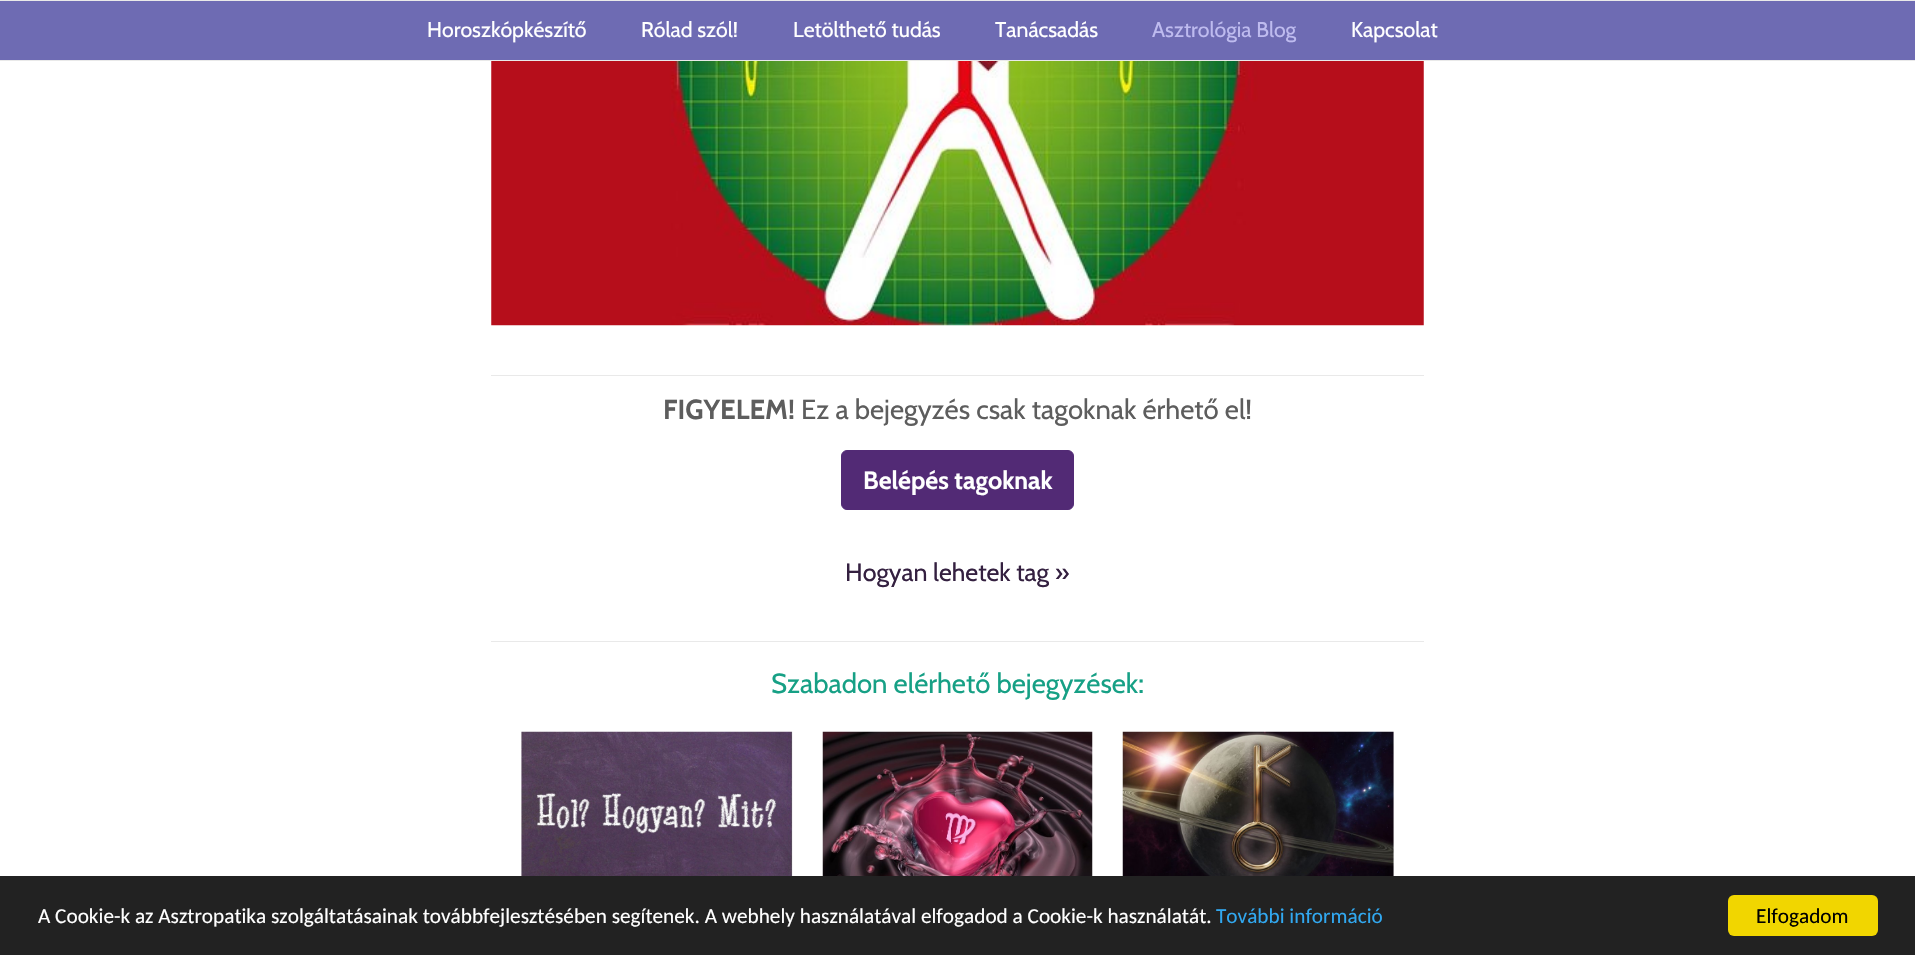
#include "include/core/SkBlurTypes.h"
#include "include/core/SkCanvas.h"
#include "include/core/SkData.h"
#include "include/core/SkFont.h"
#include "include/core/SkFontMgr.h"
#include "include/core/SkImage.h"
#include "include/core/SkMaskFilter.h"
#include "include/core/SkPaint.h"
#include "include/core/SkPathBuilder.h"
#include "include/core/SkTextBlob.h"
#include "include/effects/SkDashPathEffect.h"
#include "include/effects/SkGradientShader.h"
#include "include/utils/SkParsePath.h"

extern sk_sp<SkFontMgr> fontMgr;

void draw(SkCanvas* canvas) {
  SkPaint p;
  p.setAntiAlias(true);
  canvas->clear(SK_ColorWHITE);
  p.setColor(SkColorSetRGB(110, 107, 179));
  canvas->drawRect(SkRect::MakeLTRB(0, 1, 1915, 60), p);
  p.setColor(SkColorSetRGB(233, 233, 233));
  canvas->drawRect(SkRect::MakeLTRB(0, 0, 1915, 1), p);
  canvas->drawRect(SkRect::MakeLTRB(0, 60, 1915, 61), p);
  canvas->drawImageRect(SkImages::DeferredFromEncodedData(SkData::MakeFromFileName("images/1.png")), SkRect::MakeLTRB(491, 61, 1424, 326), SkSamplingOptions());
  canvas->drawRect(SkRect::MakeLTRB(491, 375, 1424, 376), p);
  p.setColor(SkColorSetRGB(82, 42, 117));
  canvas->drawRoundRect(SkRect::MakeLTRB(841.5f, 450.5f, 1073.5f, 509.5f), 5.5f, 5.5f, p);
  p.setStyle(SkPaint::kStroke_Style);
  p.setStrokeWidth(1);
  canvas->drawRoundRect(SkRect::MakeLTRB(841.5f, 450.5f, 1073.5f, 509.5f), 5.5f, 5.5f, p);
  p.setStyle(SkPaint::kFill_Style);
  p.setColor(SkColorSetRGB(233, 233, 233));
  canvas->drawRect(SkRect::MakeLTRB(491, 641, 1424, 642), p);
  canvas->drawImageRect(SkImages::DeferredFromEncodedData(SkData::MakeFromFileName("images/2.png")), SkRect::MakeLTRB(521, 731, 793, 876), SkSamplingOptions());
  canvas->drawImageRect(SkImages::DeferredFromEncodedData(SkData::MakeFromFileName("images/3.png")), SkRect::MakeLTRB(822, 731, 1093, 876), SkSamplingOptions());
  canvas->drawImageRect(SkImages::DeferredFromEncodedData(SkData::MakeFromFileName("images/4.png")), SkRect::MakeLTRB(1122, 731, 1394, 876), SkSamplingOptions());
  p.setColor(SkColorSetRGB(34, 34, 34));
  canvas->drawRect(SkRect::MakeLTRB(0, 876, 1915, 955), p);
  p.setColor(SkColorSetRGB(241, 214, 0));
  canvas->drawRoundRect(SkRect::MakeLTRB(1728, 895, 1878, 936), 6, 6, p);
  SkFont font1(fontMgr->matchFamilyStyle("Cabin", SkFontStyle::Normal()), 21.25f);
  font1.setSubpixel(true);
  p.setColor(SK_ColorWHITE);
  canvas->drawString("Horoszkópkészítő", 427, 37, font1, p);
  canvas->drawString("Rólad szól!", 641, 37, font1, p);
  canvas->drawString("Letölthető tudás", 793, 37, font1, p);
  canvas->drawString("Tanácsadás", 995, 37, font1, p);
  p.setColor(SkColorSetRGB(190, 187, 239));
  canvas->drawString("Asztrológia Blog", 1152, 37, font1, p);
  p.setColor(SK_ColorWHITE);
  canvas->drawString("Kapcsolat", 1351, 37, font1, p);
  SkFont font2(fontMgr->matchFamilyStyle("Cabin", SkFontStyle::Bold()), 27.5f);
  font2.setSubpixel(true);
  p.setColor(SkColorSetRGB(93, 93, 93));
  canvas->drawString("FIGYELEM!", 663, 419, font2, p);
  SkFont font3(fontMgr->matchFamilyStyle("Cabin", SkFontStyle::Normal()), 27.5f);
  font3.setSubpixel(true);
  canvas->drawString("Ez a bejegyzés csak tagoknak érhető el!", 801, 419, font3, p);
  SkFont font4(fontMgr->matchFamilyStyle("Cabin", SkFontStyle::Bold()), 25);
  font4.setSubpixel(true);
  p.setColor(SK_ColorWHITE);
  canvas->drawString("Belépés tagoknak", 863, 489, font4, p);
  SkFont font5(fontMgr->matchFamilyStyle("Cabin", SkFontStyle::Normal()), 25);
  font5.setSubpixel(true);
  p.setColor(SkColorSetRGB(52, 32, 64));
  canvas->drawString("Hogyan lehetek tag »", 845, 581, font5, p);
  p.setColor(SkColorSetRGB(22, 160, 133));
  canvas->drawString("Szabadon elérhető bejegyzések:", 771, 693, font3, p);
  SkFont font6(fontMgr->matchFamilyStyle("Carlito", SkFontStyle::Normal()), 21.25f);
  font6.setSubpixel(true);
  p.setColor(SK_ColorWHITE);
  canvas->drawString("A Cookie-k az Asztropatika szolgáltatásainak továbbfejlesztésében segítenek. A webhely használatával elfogadod a Cookie-k használatát.", 38, 923, font6, p);
  p.setColor(SkColorSetRGB(49, 168, 240));
  canvas->drawString("További információ", 1216, 923, font6, p);
  p.setColor(SK_ColorBLACK);
  canvas->drawString("Elfogadom", 1756, 923, font6, p);
}
